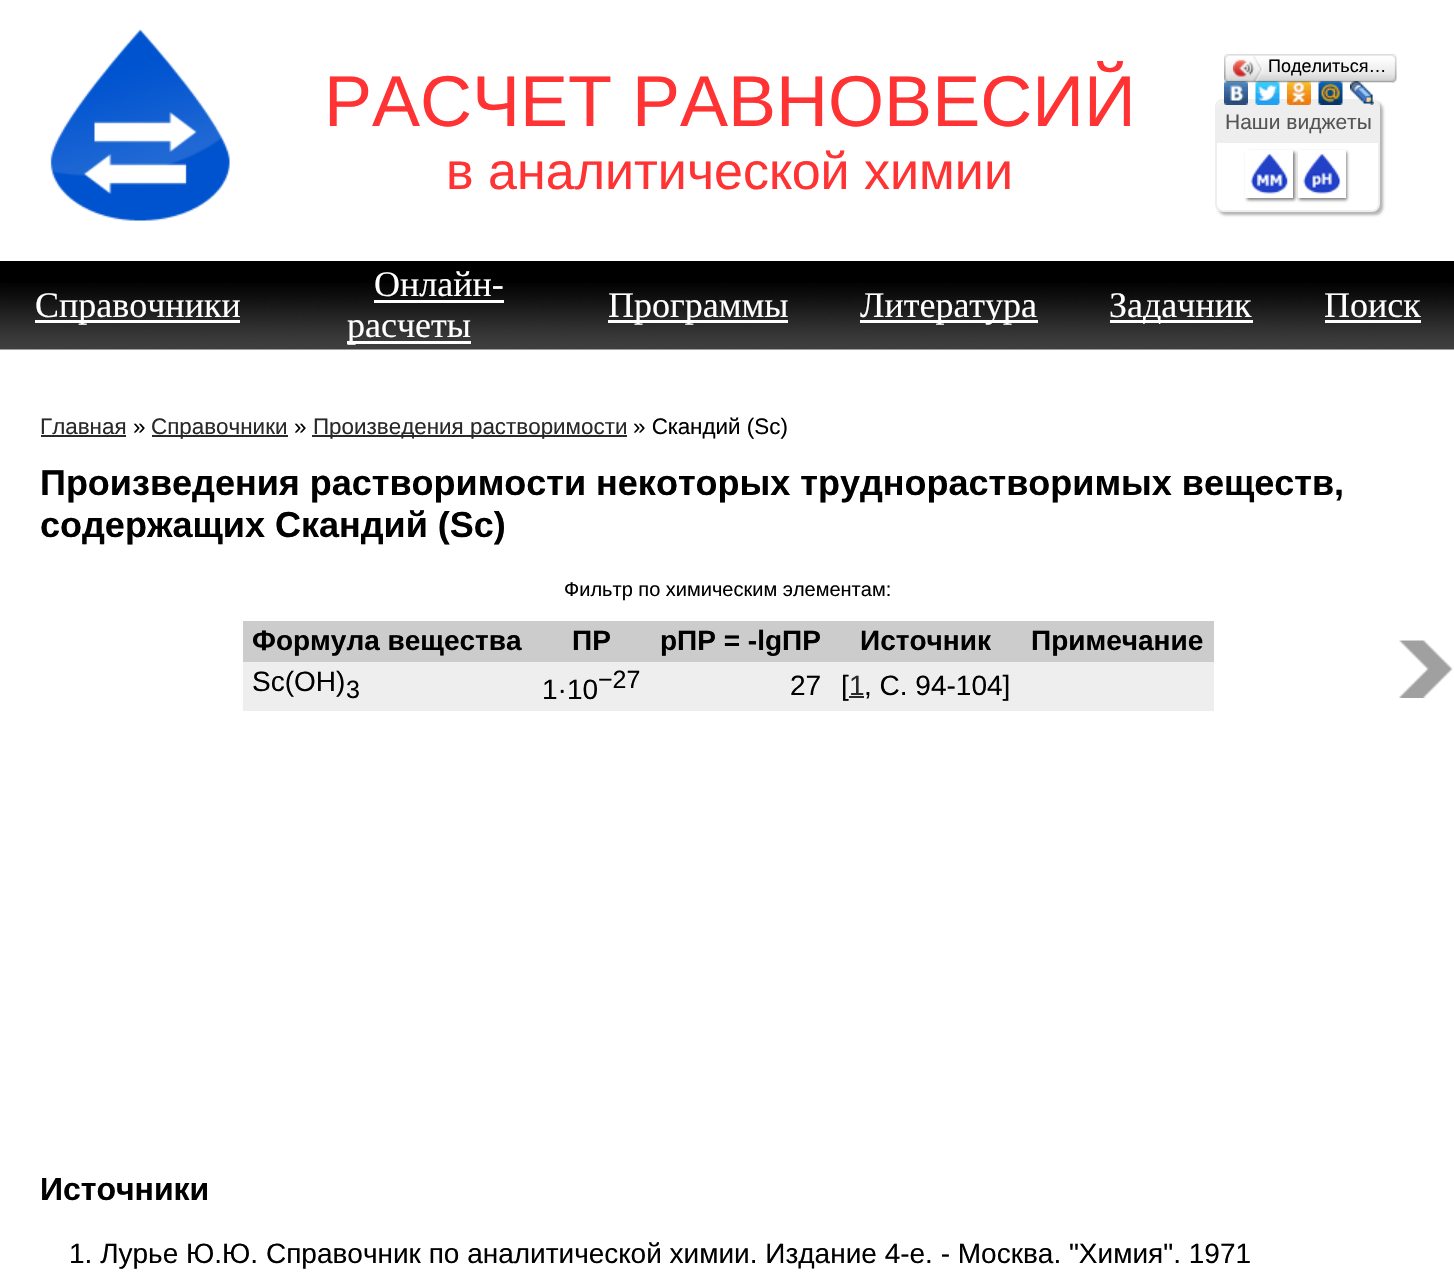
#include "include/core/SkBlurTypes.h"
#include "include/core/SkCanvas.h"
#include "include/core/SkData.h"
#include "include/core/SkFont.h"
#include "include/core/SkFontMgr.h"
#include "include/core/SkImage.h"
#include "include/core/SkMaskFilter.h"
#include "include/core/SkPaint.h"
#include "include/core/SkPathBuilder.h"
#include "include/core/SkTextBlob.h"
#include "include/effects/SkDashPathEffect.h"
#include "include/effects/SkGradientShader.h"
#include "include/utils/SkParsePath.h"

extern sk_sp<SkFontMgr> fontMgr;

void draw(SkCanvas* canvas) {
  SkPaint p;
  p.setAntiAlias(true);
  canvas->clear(SK_ColorWHITE);
  canvas->drawImageRect(SkImages::DeferredFromEncodedData(SkData::MakeFromFileName("images/1.png")), SkRect::MakeLTRB(50, 29, 230, 221), SkSamplingOptions());
  p.setColor(SkColorSetARGB(77, 0, 0, 0));
  p.setMaskFilter(SkMaskFilter::MakeBlur(kNormal_SkBlurStyle, 1.5f));
  canvas->drawRoundRect(SkRect::MakeLTRB(1218, 102, 1383, 215), 8, 8, p);
  p.setMaskFilter(nullptr);
  p.setColor(SK_ColorWHITE);
  canvas->drawRoundRect(SkRect::MakeLTRB(1216, 100, 1379, 211), 7, 7, p);
  p.setStyle(SkPaint::kStroke_Style);
  p.setStrokeWidth(2);
  p.setColor(SkColorSetRGB(238, 238, 238));
  canvas->drawRoundRect(SkRect::MakeLTRB(1216, 100, 1379, 211), 7, 7, p);
  p.setStyle(SkPaint::kFill_Style);
  canvas->drawPath(SkPathBuilder().moveTo(1225, 101).lineTo(1371, 101).cubicTo(1375.5f, 101, 1379, 104.5f, 1379, 109).lineTo(1379, 143).lineTo(1217, 143).lineTo(1217, 109).cubicTo(1217, 104.5f, 1220.5f, 101, 1225, 101).close().detach(), p);
  canvas->drawImageRect(SkImages::DeferredFromEncodedData(SkData::MakeFromFileName("images/6.png")), SkRect::MakeLTRB(1224, 81, 1248, 105), SkSamplingOptions());
  canvas->drawImageRect(SkImages::DeferredFromEncodedData(SkData::MakeFromFileName("images/7.png")), SkRect::MakeLTRB(1255, 81, 1280, 105), SkSamplingOptions());
  canvas->drawImageRect(SkImages::DeferredFromEncodedData(SkData::MakeFromFileName("images/8.png")), SkRect::MakeLTRB(1287, 81, 1311, 105), SkSamplingOptions());
  canvas->drawImageRect(SkImages::DeferredFromEncodedData(SkData::MakeFromFileName("images/9.png")), SkRect::MakeLTRB(1318, 81, 1343, 105), SkSamplingOptions());
  canvas->drawImageRect(SkImages::DeferredFromEncodedData(SkData::MakeFromFileName("images/10.png")), SkRect::MakeLTRB(1350, 81, 1374, 105), SkSamplingOptions());
  canvas->drawImageRect(SkImages::DeferredFromEncodedData(SkData::MakeFromFileName("images/2.png")), SkRect::MakeLTRB(1228, 54, 1392, 83), SkSamplingOptions());
  canvas->drawImageRect(SkImages::DeferredFromEncodedData(SkData::MakeFromFileName("images/3.png")), SkRect::MakeLTRB(1224, 54, 1229, 83), SkSamplingOptions());
  canvas->drawImageRect(SkImages::DeferredFromEncodedData(SkData::MakeFromFileName("images/4.png")), SkRect::MakeLTRB(1233, 55, 1263, 81), SkSamplingOptions());
  canvas->drawImageRect(SkImages::DeferredFromEncodedData(SkData::MakeFromFileName("images/5.png")), SkRect::MakeLTRB(1392, 54, 1397, 83), SkSamplingOptions());
  canvas->save();
  canvas->clipPath(SkPathBuilder(SkPathFillType::kEvenOdd).moveTo(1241, 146).lineTo(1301, 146).lineTo(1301, 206).lineTo(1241, 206).close().moveTo(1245, 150).lineTo(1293, 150).lineTo(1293, 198).lineTo(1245, 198).close().detach(), true);
  p.setColor(SkColorSetARGB(128, 0, 0, 0));
  p.setMaskFilter(SkMaskFilter::MakeBlur(kNormal_SkBlurStyle, 1.5f));
  canvas->drawRect(SkRect::MakeLTRB(1247, 152, 1295, 200), p);
  p.setMaskFilter(nullptr);
  canvas->restore();
  canvas->drawImageRect(SkImages::DeferredFromEncodedData(SkData::MakeFromFileName("images/11.png")), SkRect::MakeLTRB(1250, 153, 1289, 194), SkSamplingOptions());
  canvas->save();
  canvas->clipPath(SkPathBuilder(SkPathFillType::kEvenOdd).moveTo(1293, 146).lineTo(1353, 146).lineTo(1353, 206).lineTo(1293, 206).close().moveTo(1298, 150).lineTo(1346, 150).lineTo(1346, 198).lineTo(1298, 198).close().detach(), true);
  p.setMaskFilter(SkMaskFilter::MakeBlur(kNormal_SkBlurStyle, 1.5f));
  canvas->drawRect(SkRect::MakeLTRB(1299, 152, 1347, 200), p);
  p.setMaskFilter(nullptr);
  canvas->restore();
  canvas->drawImageRect(SkImages::DeferredFromEncodedData(SkData::MakeFromFileName("images/12.png")), SkRect::MakeLTRB(1303, 153, 1341, 194), SkSamplingOptions());
  p.setColor(SK_ColorBLACK);
  canvas->drawRect(SkRect::MakeLTRB(0, 261, 1454, 283), p);
  canvas->drawImageRect(SkImages::DeferredFromEncodedData(SkData::MakeFromFileName("images/13.png")), SkRect::MakeLTRB(0, 283, 1454, 351), SkSamplingOptions());
  p.setColor(SK_ColorWHITE);
  canvas->drawRect(SkRect::MakeLTRB(35, 320, 240, 323), p);
  canvas->drawRect(SkRect::MakeLTRB(374, 300, 504, 303), p);
  canvas->drawRect(SkRect::MakeLTRB(347, 341, 471, 344), p);
  canvas->drawRect(SkRect::MakeLTRB(608, 320, 788, 323), p);
  canvas->drawRect(SkRect::MakeLTRB(860, 320, 1038, 323), p);
  canvas->drawRect(SkRect::MakeLTRB(1110, 320, 1253, 323), p);
  canvas->drawRect(SkRect::MakeLTRB(1325, 320, 1421, 323), p);
  p.setColor(SkColorSetRGB(41, 41, 41));
  canvas->drawRect(SkRect::MakeLTRB(41, 435, 126, 437), p);
  canvas->drawRect(SkRect::MakeLTRB(152, 435, 288, 437), p);
  canvas->drawRect(SkRect::MakeLTRB(312, 435, 627, 437), p);
  p.setColor(SkColorSetRGB(204, 204, 204));
  canvas->drawRect(SkRect::MakeLTRB(243, 621, 1214, 662), p);
  p.setColor(SkColorSetRGB(238, 238, 238));
  canvas->drawRect(SkRect::MakeLTRB(243, 662, 1214, 711), p);
  p.setColor(SkColorSetRGB(41, 41, 41));
  canvas->drawRect(SkRect::MakeLTRB(849, 696, 864, 698), p);
  canvas->drawImageRect(SkImages::DeferredFromEncodedData(SkData::MakeFromFileName("images/14.png")), SkRect::MakeLTRB(1399, 640, 1453, 698), SkSamplingOptions());
  SkFont font1(fontMgr->matchFamilyStyle("Liberation Sans", SkFontStyle::Normal()), 72);
  font1.setSubpixel(true);
  p.setColor(SkColorSetRGB(255, 51, 51));
  canvas->drawString("РАСЧЕТ РАВНОВЕСИЙ", 324, 126, font1, p);
  SkFont font2(fontMgr->matchFamilyStyle("Liberation Sans", SkFontStyle::Normal()), 52);
  font2.setSubpixel(true);
  canvas->drawString("в аналитической химии", 446, 189, font2, p);
  SkFont font3(fontMgr->matchFamilyStyle("Liberation Sans", SkFontStyle::Normal()), 18);
  font3.setSubpixel(true);
  p.setColor(SK_ColorBLACK);
  canvas->drawString("Поделиться…", 1268, 72, font3, p);
  SkFont font4(fontMgr->matchFamilyStyle("Liberation Sans", SkFontStyle::Normal()), 21);
  font4.setSubpixel(true);
  p.setColor(SkColorSetRGB(85, 85, 85));
  canvas->drawString("Наши виджеты", 1225, 129, font4, p);
  SkFont font5(fontMgr->matchFamilyStyle("Liberation Serif", SkFontStyle::Normal()), 36);
  font5.setSubpixel(true);
  p.setColor(SK_ColorWHITE);
  canvas->drawString("Справочники", 35, 317, font5, p);
  canvas->drawString("Онлайн-", 374, 296, font5, p);
  canvas->drawString("расчеты", 347, 337, font5, p);
  canvas->drawString("Программы", 608, 317, font5, p);
  canvas->drawString("Литература", 860, 317, font5, p);
  canvas->drawString("Задачник", 1109, 317, font5, p);
  canvas->drawString("Поиск", 1324, 317, font5, p);
  SkFont font6(fontMgr->matchFamilyStyle("Liberation Sans", SkFontStyle::Normal()), 22.4f);
  font6.setSubpixel(true);
  p.setColor(SkColorSetRGB(41, 41, 41));
  canvas->drawString("Главная", 40, 434, font6, p);
  p.setColor(SK_ColorBLACK);
  canvas->drawString("»", 133, 434, font6, p);
  p.setColor(SkColorSetRGB(41, 41, 41));
  canvas->drawString("Справочники", 151, 434, font6, p);
  p.setColor(SK_ColorBLACK);
  canvas->drawString("»", 294, 434, font6, p);
  p.setColor(SkColorSetRGB(41, 41, 41));
  canvas->drawString("Произведения растворимости", 313, 434, font6, p);
  p.setColor(SK_ColorBLACK);
  canvas->drawString("» Скандий (Sc)", 633, 434, font6, p);
  SkFont font7(fontMgr->matchFamilyStyle("Liberation Sans", SkFontStyle::Bold()), 36);
  font7.setSubpixel(true);
  canvas->drawString("Произведения растворимости некоторых труднорастворимых веществ,", 40, 495, font7, p);
  canvas->drawString("содержащих Скандий (Sc)", 40, 537, font7, p);
  SkFont font8(fontMgr->matchFamilyStyle("Liberation Sans", SkFontStyle::Normal()), 20);
  font8.setSubpixel(true);
  canvas->drawString("Фильтр по химическим элементам:", 564, 596, font8, p);
  SkFont font9(fontMgr->matchFamilyStyle("Liberation Sans", SkFontStyle::Bold()), 28);
  font9.setSubpixel(true);
  canvas->drawString("Формула вещества", 252, 650, font9, p);
  canvas->drawString("ПР", 572, 650, font9, p);
  canvas->drawString("pПР = -lgПР", 660, 650, font9, p);
  canvas->drawString("Источник", 860, 650, font9, p);
  canvas->drawString("Примечание", 1031, 650, font9, p);
  SkFont font10(fontMgr->matchFamilyStyle("Liberation Sans", SkFontStyle::Normal()), 28);
  font10.setSubpixel(true);
  canvas->drawString("Sc(OH)", 252, 691, font10, p);
  SkFont font11(fontMgr->matchFamilyStyle("Liberation Sans", SkFontStyle::Normal()), 25);
  font11.setSubpixel(true);
  canvas->drawString("3", 346, 698, font11, p);
  canvas->drawString("1·10", 542, 699, font10, p);
  canvas->drawString("−27", 598, 688, font11, p);
  canvas->drawString("27", 790, 695, font10, p);
  canvas->drawString("[", 841, 695, font10, p);
  p.setColor(SkColorSetRGB(41, 41, 41));
  canvas->drawString("1", 849, 695, font10, p);
  p.setColor(SK_ColorBLACK);
  canvas->drawString(", С. 94-104]", 864, 695, font10, p);
  SkFont font12(fontMgr->matchFamilyStyle("Liberation Sans", SkFontStyle::Bold()), 32);
  font12.setSubpixel(true);
  canvas->drawString("Источники", 40, 1200, font12, p);
  canvas->drawString("1. Лурье Ю.Ю. Справочник по аналитической химии. Издание 4-е. - Москва. \"Химия\". 1971", 69, 1263, font10, p);
}
